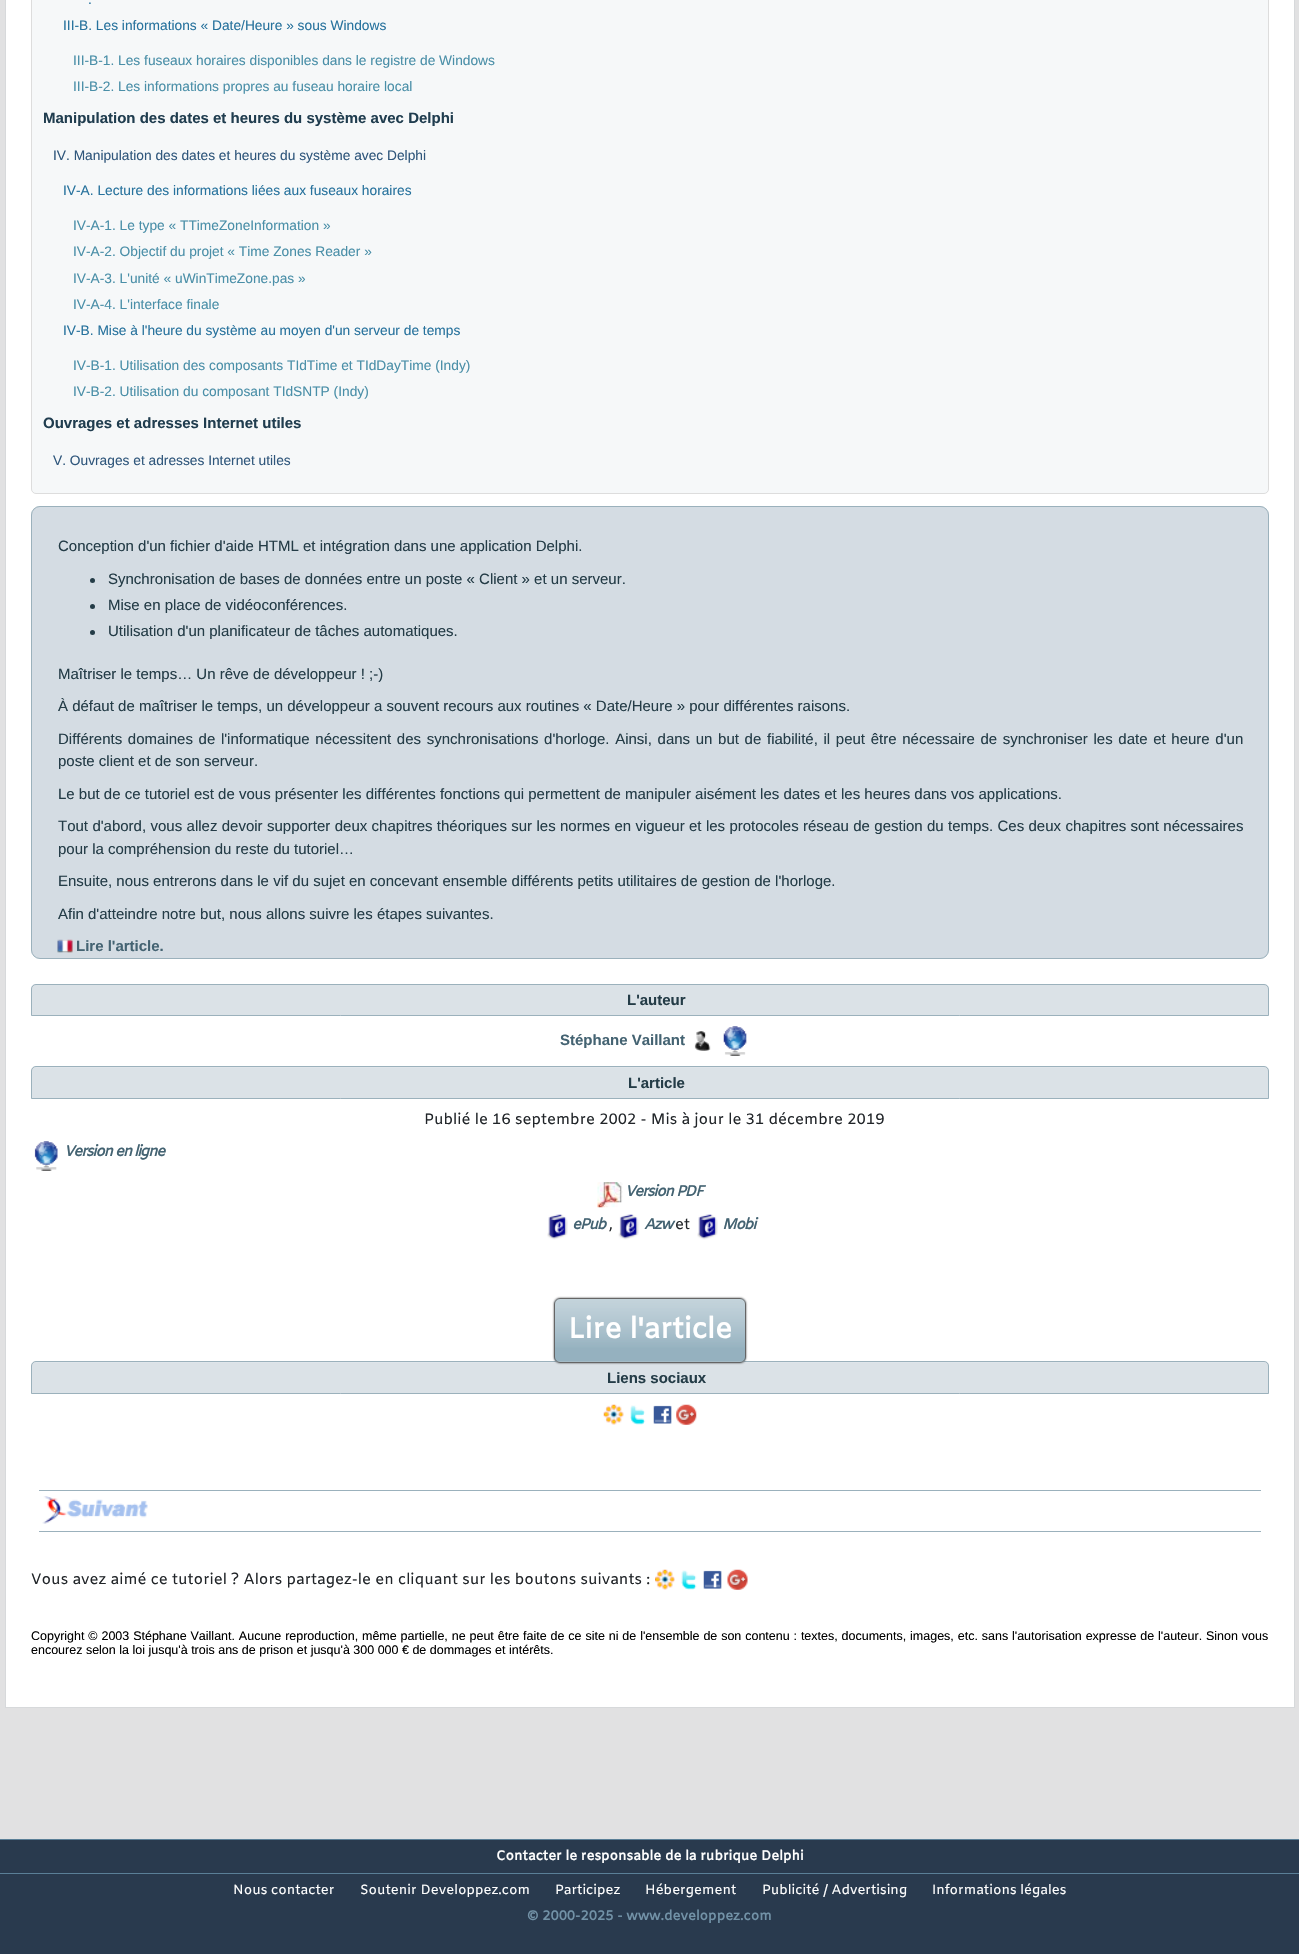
#include "include/core/SkBlurTypes.h"
#include "include/core/SkCanvas.h"
#include "include/core/SkData.h"
#include "include/core/SkFont.h"
#include "include/core/SkFontMgr.h"
#include "include/core/SkImage.h"
#include "include/core/SkMaskFilter.h"
#include "include/core/SkPaint.h"
#include "include/core/SkPathBuilder.h"
#include "include/core/SkTextBlob.h"
#include "include/effects/SkDashPathEffect.h"
#include "include/effects/SkGradientShader.h"
#include "include/utils/SkParsePath.h"

extern sk_sp<SkFontMgr> fontMgr;

void draw(SkCanvas* canvas) {
  SkPaint p;
  p.setAntiAlias(true);
  auto spacedText = [&](const char* s, float x, float y, const SkFont& font, const SkPaint& ink, float letter, float word) {
    std::vector<SkGlyphID> glyphs(font.countText(s, strlen(s), SkTextEncoding::kUTF8));
    std::vector<float> xs(glyphs.size());
    font.textToGlyphs(s, strlen(s), SkTextEncoding::kUTF8, glyphs);
    font.getXPos(glyphs, xs, x);
    float extra = 0;
    for (size_t i = 0; i < glyphs.size(); i++) {
      xs[i] += extra;
      extra += letter + word * (glyphs[i] == font.unicharToGlyph(' '));
    }
    canvas->drawTextBlob(SkTextBlob::MakeFromPosHGlyphs(glyphs, xs, y, font), 0, 0, ink);
  };
  canvas->clear(SkColorSetRGB(41, 58, 78));
  p.setColor(SkColorSetRGB(225, 225, 226));
  canvas->drawRect(SkRect::MakeLTRB(0, 0, 1299, 1839), p);
  p.setColor(SK_ColorWHITE);
  canvas->drawRect(SkRect::MakeLTRB(5.5f, -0.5f, 1294.5f, 1707.5f), p);
  p.setStyle(SkPaint::kStroke_Style);
  p.setStrokeWidth(1);
  p.setColor(SkColorSetRGB(215, 217, 219));
  canvas->drawRect(SkRect::MakeLTRB(5.5f, -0.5f, 1294.5f, 1707.5f), p);
  p.setStyle(SkPaint::kFill_Style);
  p.setColor(SkColorSetRGB(246, 248, 249));
  canvas->drawRoundRect(SkRect::MakeLTRB(31.5f, -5.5f, 1268.5f, 493.5f), 4.5f, 4.5f, p);
  p.setStyle(SkPaint::kStroke_Style);
  p.setColor(SkColorSetRGB(221, 221, 221));
  canvas->drawRoundRect(SkRect::MakeLTRB(31.5f, -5.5f, 1268.5f, 493.5f), 4.5f, 4.5f, p);
  p.setStyle(SkPaint::kFill_Style);
  p.setColor(SkColorSetRGB(226, 232, 236));
  canvas->drawRoundRect(SkRect::MakeLTRB(31, 506, 1269, 959), 9, 9, p);
  canvas->drawImageRect(SkImages::DeferredFromEncodedData(SkData::MakeFromFileName("images/1.png")), SkRect::MakeLTRB(31, 506, 1269, 958), SkSamplingOptions());
  p.setStyle(SkPaint::kStroke_Style);
  p.setColor(SkColorSetRGB(155, 177, 188));
  canvas->drawRoundRect(SkRect::MakeLTRB(31.5f, 506.5f, 1268.5f, 958.5f), 8.5f, 8.5f, p);
  p.setStyle(SkPaint::kFill_Style);
  p.setColor(SkColorSetRGB(36, 60, 71));
  canvas->drawCircle(92.5f, 580.5f, 2.5f, p);
  canvas->drawCircle(92.5f, 606.5f, 2.5f, p);
  canvas->drawCircle(92.5f, 632.5f, 2.5f, p);
  canvas->drawImageRect(SkImages::DeferredFromEncodedData(SkData::MakeFromFileName("images/2.png")), SkRect::MakeLTRB(57, 939, 73, 953), SkSamplingOptions());
  p.setColor(SkColorSetRGB(235, 239, 242));
  canvas->drawPath(SkPathBuilder().moveTo(36, 984).lineTo(1264, 984).cubicTo(1267, 984, 1269, 986, 1269, 989).lineTo(1269, 1016).lineTo(31, 1016).lineTo(31, 989).cubicTo(31, 986, 33, 984, 36, 984).close().detach(), p);
  canvas->drawImageRect(SkImages::DeferredFromEncodedData(SkData::MakeFromFileName("images/3.png")), SkRect::MakeLTRB(31, 984, 1269, 1015), SkSamplingOptions());
  p.setStyle(SkPaint::kStroke_Style);
  p.setColor(SkColorSetRGB(155, 177, 188));
  canvas->drawPath(SkPathBuilder().moveTo(36, 984.5f).lineTo(1264, 984.5f).cubicTo(1266.5f, 984.5f, 1268.5f, 986.5f, 1268.5f, 989).lineTo(1268.5f, 1015.5f).lineTo(31.5f, 1015.5f).lineTo(31.5f, 989).cubicTo(31.5f, 986.5f, 33.5f, 984.5f, 36, 984.5f).close().detach(), p);
  canvas->drawImageRect(SkImages::DeferredFromEncodedData(SkData::MakeFromFileName("images/4.png")), SkRect::MakeLTRB(694, 1031, 711, 1051), SkSamplingOptions());
  canvas->drawImageRect(SkImages::DeferredFromEncodedData(SkData::MakeFromFileName("images/5.png")), SkRect::MakeLTRB(723, 1026, 747, 1056), SkSamplingOptions());
  p.setStyle(SkPaint::kFill_Style);
  p.setColor(SkColorSetRGB(235, 239, 242));
  canvas->drawPath(SkPathBuilder().moveTo(36, 1066).lineTo(1264, 1066).cubicTo(1267, 1066, 1269, 1068, 1269, 1071).lineTo(1269, 1099).lineTo(31, 1099).lineTo(31, 1071).cubicTo(31, 1068, 33, 1066, 36, 1066).close().detach(), p);
  canvas->drawImageRect(SkImages::DeferredFromEncodedData(SkData::MakeFromFileName("images/6.png")), SkRect::MakeLTRB(31, 1067, 1269, 1098), SkSamplingOptions());
  p.setStyle(SkPaint::kStroke_Style);
  p.setColor(SkColorSetRGB(155, 177, 188));
  canvas->drawPath(SkPathBuilder().moveTo(36, 1066.5f).lineTo(1264, 1066.5f).cubicTo(1266.5f, 1066.5f, 1268.5f, 1068.5f, 1268.5f, 1071).lineTo(1268.5f, 1098.5f).lineTo(31.5f, 1098.5f).lineTo(31.5f, 1071).cubicTo(31.5f, 1068.5f, 33.5f, 1066.5f, 36, 1066.5f).close().detach(), p);
  canvas->drawImageRect(SkImages::DeferredFromEncodedData(SkData::MakeFromFileName("images/7.png")), SkRect::MakeLTRB(34, 1141, 58, 1171), SkSamplingOptions());
  canvas->drawImageRect(SkImages::DeferredFromEncodedData(SkData::MakeFromFileName("images/8.png")), SkRect::MakeLTRB(597, 1182, 623, 1208), SkSamplingOptions());
  canvas->drawImageRect(SkImages::DeferredFromEncodedData(SkData::MakeFromFileName("images/9.png")), SkRect::MakeLTRB(547, 1214, 568, 1240), SkSamplingOptions());
  canvas->drawImageRect(SkImages::DeferredFromEncodedData(SkData::MakeFromFileName("images/10.png")), SkRect::MakeLTRB(618, 1214, 640, 1240), SkSamplingOptions());
  canvas->drawImageRect(SkImages::DeferredFromEncodedData(SkData::MakeFromFileName("images/9.png")), SkRect::MakeLTRB(697, 1214, 718, 1240), SkSamplingOptions());
  p.setStyle(SkPaint::kFill_Style);
  p.setColor(SkColorSetRGB(235, 239, 242));
  canvas->drawPath(SkPathBuilder().moveTo(36, 1361).lineTo(1264, 1361).cubicTo(1267, 1361, 1269, 1363, 1269, 1366).lineTo(1269, 1394).lineTo(31, 1394).lineTo(31, 1366).cubicTo(31, 1363, 33, 1361, 36, 1361).close().detach(), p);
  canvas->drawImageRect(SkImages::DeferredFromEncodedData(SkData::MakeFromFileName("images/6.png")), SkRect::MakeLTRB(31, 1362, 1269, 1393), SkSamplingOptions());
  p.setStyle(SkPaint::kStroke_Style);
  p.setColor(SkColorSetRGB(155, 177, 188));
  canvas->drawPath(SkPathBuilder().moveTo(36, 1361.5f).lineTo(1264, 1361.5f).cubicTo(1266.5f, 1361.5f, 1268.5f, 1363.5f, 1268.5f, 1366).lineTo(1268.5f, 1393.5f).lineTo(31.5f, 1393.5f).lineTo(31.5f, 1366).cubicTo(31.5f, 1363.5f, 33.5f, 1361.5f, 36, 1361.5f).close().detach(), p);
  canvas->save();
  canvas->clipPath(SkPathBuilder(SkPathFillType::kEvenOdd).moveTo(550, 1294).lineTo(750, 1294).lineTo(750, 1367).lineTo(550, 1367).close().moveTo(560, 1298).lineTo(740, 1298).cubicTo(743.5f, 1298, 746, 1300.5f, 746, 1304).lineTo(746, 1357).cubicTo(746, 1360.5f, 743.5f, 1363, 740, 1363).lineTo(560, 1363).cubicTo(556.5f, 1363, 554, 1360.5f, 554, 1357).lineTo(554, 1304).cubicTo(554, 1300.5f, 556.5f, 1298, 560, 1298).close().detach(), true);
  p.setStyle(SkPaint::kFill_Style);
  p.setColor(SkColorSetRGB(52, 52, 52));
  p.setMaskFilter(SkMaskFilter::MakeBlur(kNormal_SkBlurStyle, 1));
  canvas->drawRoundRect(SkRect::MakeLTRB(554, 1298, 746, 1363), 6, 6, p);
  p.setMaskFilter(nullptr);
  canvas->restore();
  p.setColor(SkColorSetARGB(153, 168, 191, 203));
  canvas->drawRoundRect(SkRect::MakeLTRB(554, 1298, 746, 1363), 6, 6, p);
  canvas->save();
  canvas->clipPath(SkPathBuilder().moveTo(560, 1298).lineTo(740, 1298).cubicTo(743.5f, 1298, 746, 1300.5f, 746, 1304).lineTo(746, 1357).cubicTo(746, 1360.5f, 743.5f, 1363, 740, 1363).lineTo(560, 1363).cubicTo(556.5f, 1363, 554, 1360.5f, 554, 1357).lineTo(554, 1304).cubicTo(554, 1300.5f, 556.5f, 1298, 560, 1298).close().detach(), true);
  {
    const SkColor colors[] = {SkColorSetRGB(149, 177, 191), SkColorSetARGB(51, 168, 191, 203)};
    const float stops[] = {0.2f, 1};
    const SkPoint ends[] = {{650, 1361}, {650, 1299}};
    p.setShader(SkGradientShader::MakeLinear(ends, colors, stops, 2, SkTileMode::kClamp));
    p.setAlpha(255);
  }
  canvas->drawRect(SkRect::MakeLTRB(554, 1299, 746, 1361), p);
  {
    const SkColor colors[] = {SkColorSetRGB(149, 177, 191), SkColorSetARGB(51, 168, 191, 203)};
    const float stops[] = {0.2f, 1};
    const SkPoint ends[] = {{650, 1424}, {650, 1361}};
    p.setShader(SkGradientShader::MakeLinear(ends, colors, stops, 2, SkTileMode::kClamp));
    p.setAlpha(255);
  }
  canvas->drawRect(SkRect::MakeLTRB(554, 1361, 746, 1363), p);
  canvas->restore();
  p.setStyle(SkPaint::kStroke_Style);
  p.setShader(nullptr);
  p.setColor(SkColorSetRGB(101, 101, 101));
  canvas->drawRoundRect(SkRect::MakeLTRB(554.5f, 1298.5f, 745.5f, 1362.5f), 5.5f, 5.5f, p);
  canvas->drawImageRect(SkImages::DeferredFromEncodedData(SkData::MakeFromFileName("images/11.png")), SkRect::MakeLTRB(603, 1404, 624, 1425), SkSamplingOptions());
  canvas->drawImageRect(SkImages::DeferredFromEncodedData(SkData::MakeFromFileName("images/12.png")), SkRect::MakeLTRB(630, 1405, 646, 1425), SkSamplingOptions());
  canvas->drawImageRect(SkImages::DeferredFromEncodedData(SkData::MakeFromFileName("images/13.png")), SkRect::MakeLTRB(653, 1405, 672, 1424), SkSamplingOptions());
  canvas->drawImageRect(SkImages::DeferredFromEncodedData(SkData::MakeFromFileName("images/14.png")), SkRect::MakeLTRB(676, 1404, 697, 1425), SkSamplingOptions());
  p.setStyle(SkPaint::kFill_Style);
  p.setColor(SkColorSetRGB(155, 177, 188));
  canvas->drawRect(SkRect::MakeLTRB(39, 1490, 1261, 1491), p);
  canvas->drawImageRect(SkImages::DeferredFromEncodedData(SkData::MakeFromFileName("images/15.png")), SkRect::MakeLTRB(42, 1496, 148, 1524), SkSamplingOptions());
  canvas->drawRect(SkRect::MakeLTRB(39, 1531, 1261, 1532), p);
  canvas->drawImageRect(SkImages::DeferredFromEncodedData(SkData::MakeFromFileName("images/16.png")), SkRect::MakeLTRB(655, 1569, 675, 1590), SkSamplingOptions());
  canvas->drawImageRect(SkImages::DeferredFromEncodedData(SkData::MakeFromFileName("images/17.png")), SkRect::MakeLTRB(681, 1570, 697, 1590), SkSamplingOptions());
  canvas->drawImageRect(SkImages::DeferredFromEncodedData(SkData::MakeFromFileName("images/18.png")), SkRect::MakeLTRB(703, 1570, 722, 1589), SkSamplingOptions());
  canvas->drawImageRect(SkImages::DeferredFromEncodedData(SkData::MakeFromFileName("images/19.png")), SkRect::MakeLTRB(727, 1569, 748, 1590), SkSamplingOptions());
  p.setColor(SkColorSetRGB(90, 127, 151));
  canvas->drawRect(SkRect::MakeLTRB(0, 1839, 1299, 1840), p);
  canvas->drawRect(SkRect::MakeLTRB(0, 1873, 1299, 1874), p);
  SkFont font1(fontMgr->matchFamilyStyle("Liberation Sans", SkFontStyle::Normal()), 13.75f);
  font1.setSubpixel(true);
  p.setColor(SkColorSetRGB(39, 114, 157));
  canvas->drawString(".", 88, 4, font1, p);
  canvas->drawString("III-B. Les informations « Date/Heure » sous Windows", 63, 30, font1, p);
  p.setColor(SkColorSetRGB(74, 143, 168));
  canvas->drawString("III-B-1. Les fuseaux horaires disponibles dans le registre de Windows", 73, 65, font1, p);
  canvas->drawString("III-B-2. Les informations propres au fuseau horaire local", 73, 91, font1, p);
  SkFont font2(fontMgr->matchFamilyStyle("Liberation Sans", SkFontStyle::Bold()), 15);
  font2.setSubpixel(true);
  p.setColor(SkColorSetRGB(32, 61, 79));
  canvas->drawString("Manipulation des dates et heures du système avec Delphi", 43, 123, font2, p);
  p.setColor(SkColorSetRGB(48, 87, 124));
  canvas->drawString("IV. Manipulation des dates et heures du système avec Delphi", 53, 160, font1, p);
  p.setColor(SkColorSetRGB(39, 114, 157));
  canvas->drawString("IV-A. Lecture des informations liées aux fuseaux horaires", 63, 195, font1, p);
  p.setColor(SkColorSetRGB(74, 143, 168));
  canvas->drawString("IV-A-1. Le type « TTimeZoneInformation »", 73, 230, font1, p);
  canvas->drawString("IV-A-2. Objectif du projet « Time Zones Reader »", 73, 256, font1, p);
  canvas->drawString("IV-A-3. L'unité « uWinTimeZone.pas »", 73, 283, font1, p);
  canvas->drawString("IV-A-4. L'interface finale", 73, 309, font1, p);
  p.setColor(SkColorSetRGB(39, 114, 157));
  canvas->drawString("IV-B. Mise à l'heure du système au moyen d'un serveur de temps", 63, 335, font1, p);
  p.setColor(SkColorSetRGB(74, 143, 168));
  canvas->drawString("IV-B-1. Utilisation des composants TIdTime et TIdDayTime (Indy)", 73, 370, font1, p);
  canvas->drawString("IV-B-2. Utilisation du composant TIdSNTP (Indy)", 73, 396, font1, p);
  p.setColor(SkColorSetRGB(32, 61, 79));
  canvas->drawString("Ouvrages et adresses Internet utiles", 43, 428, font2, p);
  p.setColor(SkColorSetRGB(48, 87, 124));
  canvas->drawString("V. Ouvrages et adresses Internet utiles", 53, 465, font1, p);
  SkFont font3(fontMgr->matchFamilyStyle("Liberation Sans", SkFontStyle::Normal()), 15);
  font3.setSubpixel(true);
  p.setColor(SkColorSetRGB(36, 60, 71));
  canvas->drawString("Conception d'un fichier d'aide HTML et intégration dans une application Delphi.", 58, 551, font3, p);
  canvas->drawString("Synchronisation de bases de données entre un poste « Client » et un serveur.", 108, 584, font3, p);
  canvas->drawString("Mise en place de vidéoconférences.", 108, 610, font3, p);
  canvas->drawString("Utilisation d'un planificateur de tâches automatiques.", 108, 636, font3, p);
  canvas->drawString("Maîtriser le temps… Un rêve de développeur ! ;-)", 58, 679, font3, p);
  canvas->drawString("À défaut de maîtriser le temps, un développeur a souvent recours aux routines « Date/Heure » pour différentes raisons.", 58, 711, font3, p);
  spacedText("Différents domaines de l'informatique nécessitent des synchronisations d'horloge. Ainsi, dans un but de fiabilité, il peut être nécessaire de synchroniser les date et heure d'un", 58, 744, font3, p, 0, 1.5f);
  canvas->drawString("poste client et de son serveur.", 58, 766, font3, p);
  canvas->drawString("Le but de ce tutoriel est de vous présenter les différentes fonctions qui permettent de manipuler aisément les dates et les heures dans vos applications.", 58, 799, font3, p);
  spacedText("Tout d'abord, vous allez devoir supporter deux chapitres théoriques sur les normes en vigueur et les protocoles réseau de gestion du temps. Ces deux chapitres sont nécessaires", 58, 831, font3, p, 0, 0.2f);
  canvas->drawString("pour la compréhension du reste du tutoriel…", 58, 854, font3, p);
  canvas->drawString("Ensuite, nous entrerons dans le vif du sujet en concevant ensemble différents petits utilitaires de gestion de l'horloge.", 58, 886, font3, p);
  canvas->drawString("Afin d'atteindre notre but, nous allons suivre les étapes suivantes.", 58, 919, font3, p);
  p.setColor(SkColorSetRGB(68, 99, 114));
  canvas->drawString("Lire l'article.", 76, 951, font2, p);
  p.setColor(SkColorSetRGB(36, 60, 71));
  canvas->drawString("L'auteur", 627, 1005, font2, p);
  p.setColor(SkColorSetRGB(68, 99, 114));
  canvas->drawString("Stéphane Vaillant", 560, 1045, font2, p);
  p.setColor(SkColorSetRGB(36, 60, 71));
  canvas->drawString("L'article", 628, 1088, font2, p);
  SkFont font4(fontMgr->matchFamilyStyle("Amiko", SkFontStyle::Normal()), 15);
  font4.setSubpixel(true);
  p.setColor(SkColorSetRGB(33, 37, 41));
  canvas->drawString("Publié le 16 septembre 2002 - Mis à jour le 31 décembre 2019", 424, 1124, font4, p);
  SkFont font5(fontMgr->matchFamilyStyle("Amiko", SkFontStyle::BoldItalic()), 15);
  font5.setSubpixel(true);
  p.setColor(SkColorSetRGB(68, 99, 114));
  spacedText("Version en ligne", 64, 1156, font5, p, -1.25f, 0);
  spacedText("Version PDF", 625, 1196, font5, p, -1.25f, 0);
  spacedText("ePub", 572, 1229, font5, p, -1.25f, 0);
  p.setColor(SkColorSetRGB(33, 37, 41));
  canvas->drawString(",", 609, 1229, font4, p);
  p.setColor(SkColorSetRGB(68, 99, 114));
  spacedText("Azw", 644, 1229, font5, p, -1.25f, 0);
  p.setColor(SkColorSetRGB(33, 37, 41));
  canvas->drawString("et", 675, 1229, font4, p);
  p.setColor(SkColorSetRGB(68, 99, 114));
  spacedText("Mobi", 722, 1229, font5, p, -1.25f, 0);
  SkFont font6(fontMgr->matchFamilyStyle("Amiko", SkFontStyle::Bold()), 28.5f);
  font6.setSubpixel(true);
  p.setColor(SK_ColorWHITE);
  canvas->drawString("Lire l'article", 568, 1338, font6, p);
  p.setColor(SkColorSetRGB(36, 60, 71));
  canvas->drawString("Liens sociaux", 607, 1383, font2, p);
  p.setColor(SkColorSetRGB(33, 37, 41));
  canvas->drawString("Vous avez aimé ce tutoriel ? Alors partagez-le en cliquant sur les boutons suivants :", 31, 1584, font4, p);
  SkFont font7(fontMgr->matchFamilyStyle("Liberation Sans", SkFontStyle::Normal()), 12.5f);
  font7.setSubpixel(true);
  p.setColor(SK_ColorBLACK);
  spacedText("Copyright © 2003 Stéphane Vaillant. Aucune reproduction, même partielle, ne peut être faite de ce site ni de l'ensemble de son contenu : textes, documents, images, etc. sans l'autorisation expresse de l'auteur. Sinon vous", 31, 1640, font7, p, 0, 0.4f);
  canvas->drawString("encourez selon la loi jusqu'à trois ans de prison et jusqu'à 300 000 € de dommages et intérêts.", 31, 1654, font7, p);
  SkFont font8(fontMgr->matchFamilyStyle("Amiko", SkFontStyle::Bold()), 13.3f);
  font8.setSubpixel(true);
  p.setColor(SK_ColorWHITE);
  canvas->drawString("Contacter le responsable de la rubrique Delphi", 496, 1860, font8, p);
  SkFont font9(fontMgr->matchFamilyStyle("Amiko", SkFontStyle::Normal()), 13.3f);
  font9.setSubpixel(true);
  canvas->drawString("Nous contacter", 233, 1894, font9, p);
  canvas->drawString("Soutenir Developpez.com", 360, 1894, font9, p);
  canvas->drawString("Participez", 555, 1894, font9, p);
  canvas->drawString("Hébergement", 645, 1894, font9, p);
  canvas->drawString("Publicité / Advertising", 762, 1894, font9, p);
  canvas->drawString("Informations légales", 932, 1894, font9, p);
  p.setColor(SkColorSetRGB(114, 146, 167));
  canvas->drawString("© 2000-2025 - www.developpez.com", 527, 1920, font8, p);
}
